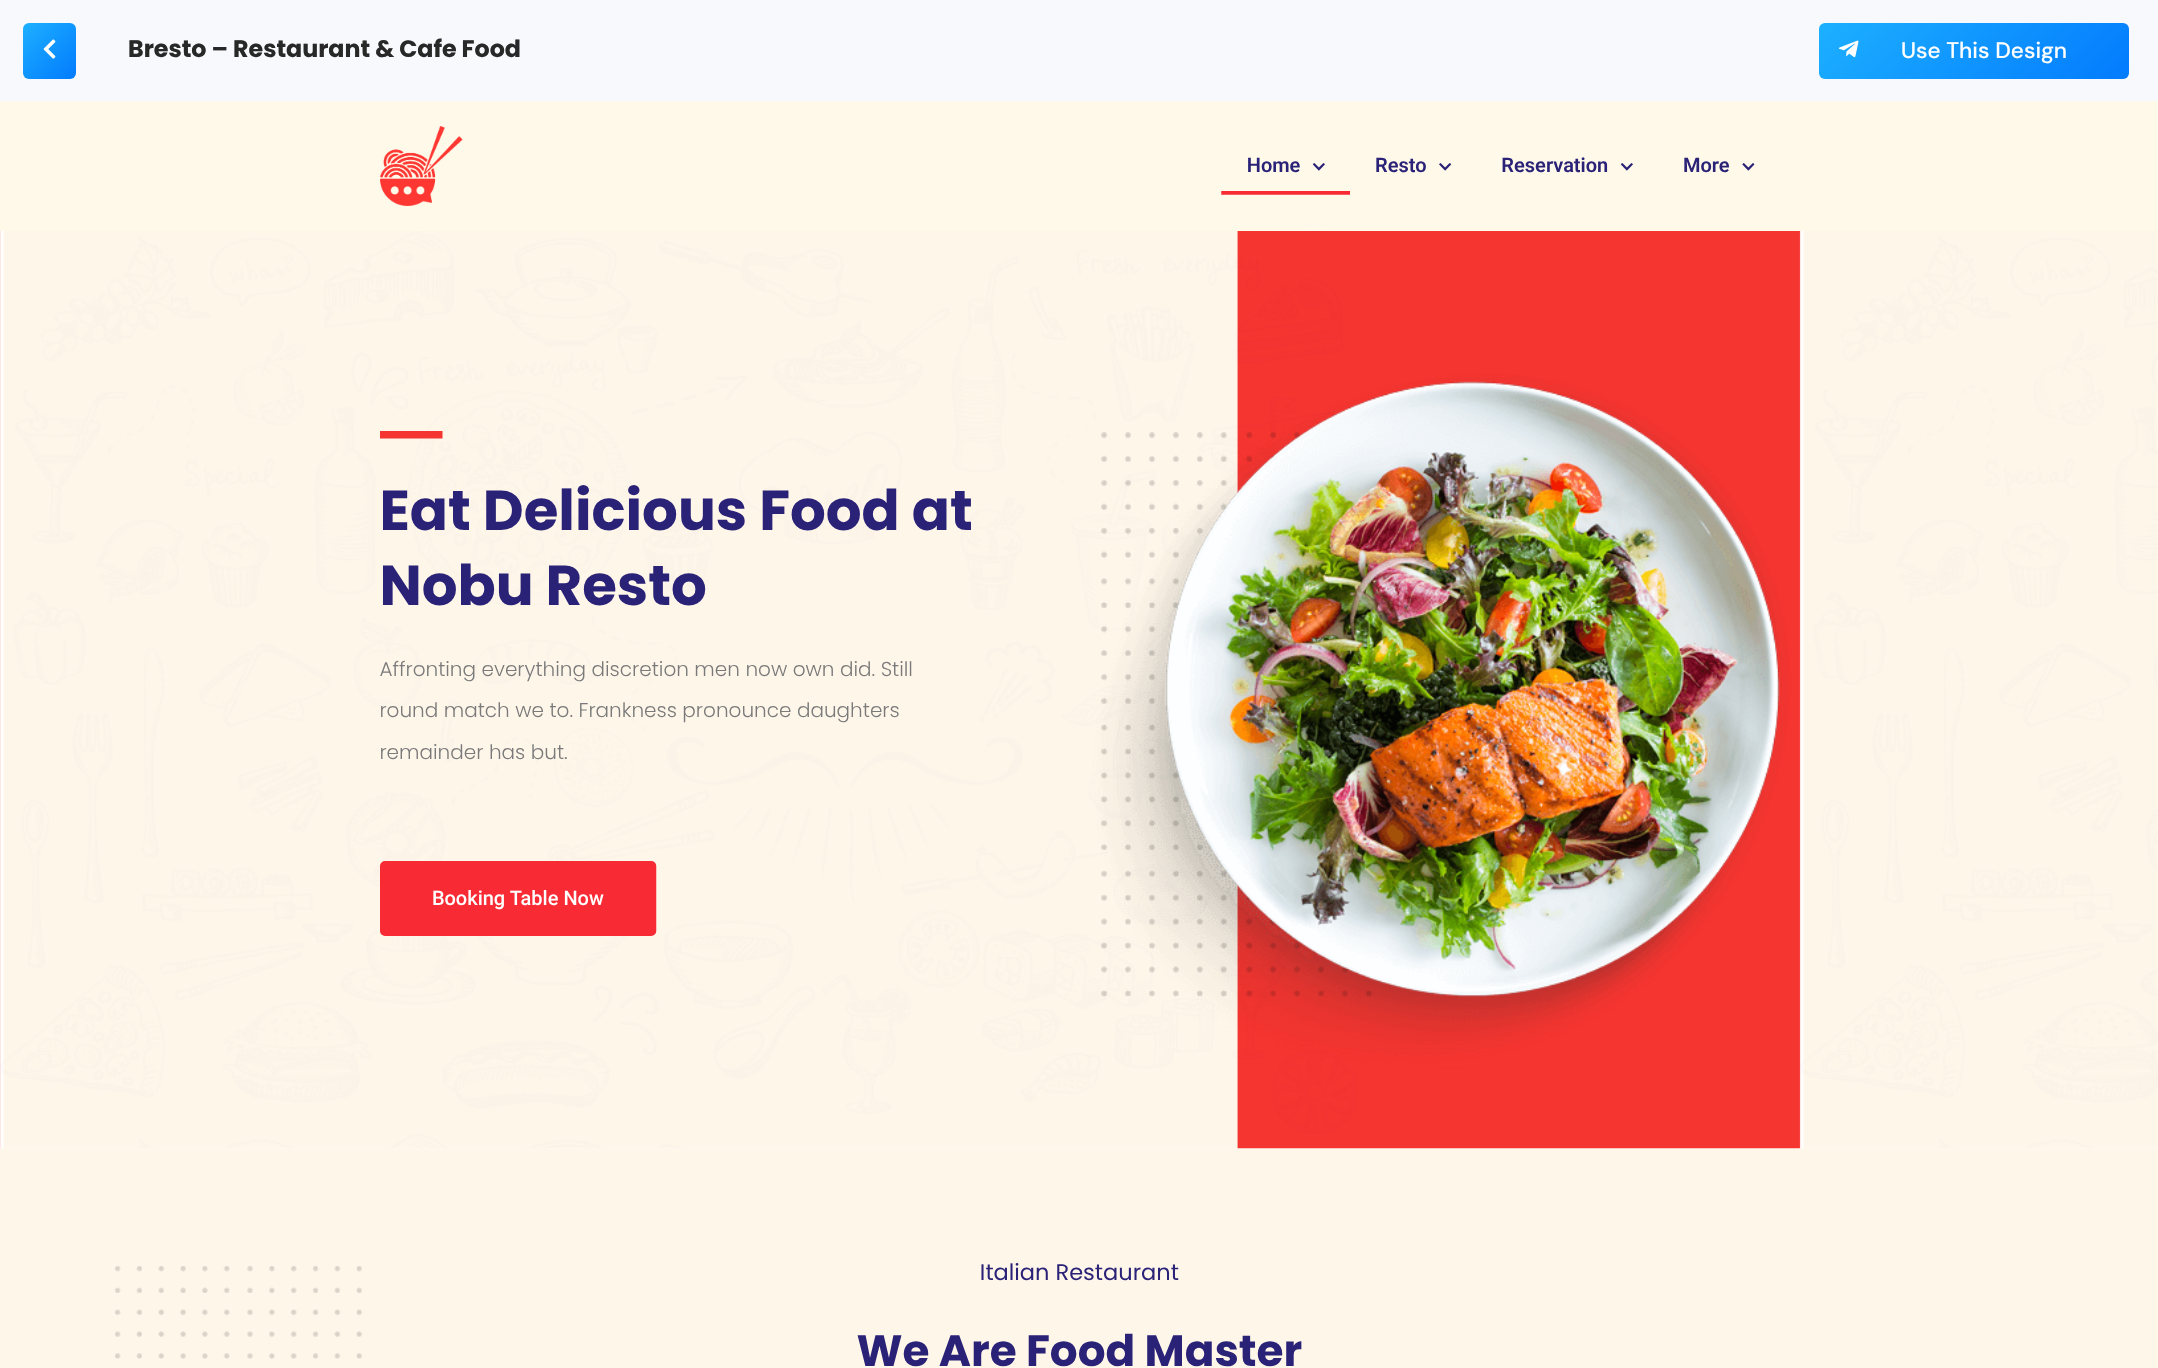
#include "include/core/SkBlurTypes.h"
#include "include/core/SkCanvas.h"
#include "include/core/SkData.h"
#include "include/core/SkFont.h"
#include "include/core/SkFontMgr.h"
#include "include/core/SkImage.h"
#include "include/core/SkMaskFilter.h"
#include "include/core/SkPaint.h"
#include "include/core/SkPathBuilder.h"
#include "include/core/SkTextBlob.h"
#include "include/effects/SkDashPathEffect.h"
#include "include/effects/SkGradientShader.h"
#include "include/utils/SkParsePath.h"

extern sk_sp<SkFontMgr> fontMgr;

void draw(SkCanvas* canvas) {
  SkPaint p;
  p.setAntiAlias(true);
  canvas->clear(SkColorSetRGB(248, 249, 252));
  {
    const SkColor colors[] = {SkColorSetRGB(29, 176, 255), SkColorSetRGB(3, 123, 254)};
    const float stops[] = {0, 1};
    const SkPoint ends[] = {{22, 23}, {77, 78}};
    p.setShader(SkGradientShader::MakeLinear(ends, colors, stops, 2, SkTileMode::kClamp));
    p.setAlpha(255);
  }
  canvas->drawRoundRect(SkRect::MakeLTRB(23, 23, 76, 79), 6, 6, p);
  canvas->drawImageRect(SkImages::DeferredFromEncodedData(SkData::MakeFromFileName("images/1.png")), SkRect::MakeLTRB(43, 39, 56, 59), SkSamplingOptions());
  {
    const SkColor colors[] = {SkColorSetRGB(29, 176, 255), SkColorSetRGB(3, 123, 254)};
    const float stops[] = {0, 1};
    const SkPoint ends[] = {{1882, -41}, {2065, 142}};
    p.setShader(SkGradientShader::MakeLinear(ends, colors, stops, 2, SkTileMode::kClamp));
    p.setAlpha(255);
  }
  canvas->drawRoundRect(SkRect::MakeLTRB(1819, 23, 2129, 79), 6, 6, p);
  canvas->drawImageRect(SkImages::DeferredFromEncodedData(SkData::MakeFromFileName("images/2.png")), SkRect::MakeLTRB(1838, 40, 1859, 58), SkSamplingOptions());
  canvas->drawImageRect(SkImages::DeferredFromEncodedData(SkData::MakeFromFileName("images/3.png")), SkRect::MakeLTRB(0, 101, 2158, 1368), SkSamplingOptions());
  SkFont font1(fontMgr->matchFamilyStyle("Poppins", SkFontStyle::Bold()), 23.75f);
  font1.setSubpixel(true);
  p.setShader(nullptr);
  p.setColor(SkColorSetRGB(40, 40, 40));
  canvas->drawString("Bresto – Restaurant & Cafe Food", 128, 57, font1, p);
  SkFont font2(fontMgr->matchFamilyStyle("DM Sans", SkFontStyle(500, SkFontStyle::kNormal_Width, SkFontStyle::kUpright_Slant)), 22.5f);
  font2.setSubpixel(true);
  p.setColor(SK_ColorWHITE);
  canvas->drawString("Use This Design", 1901, 58, font2, p);
}
